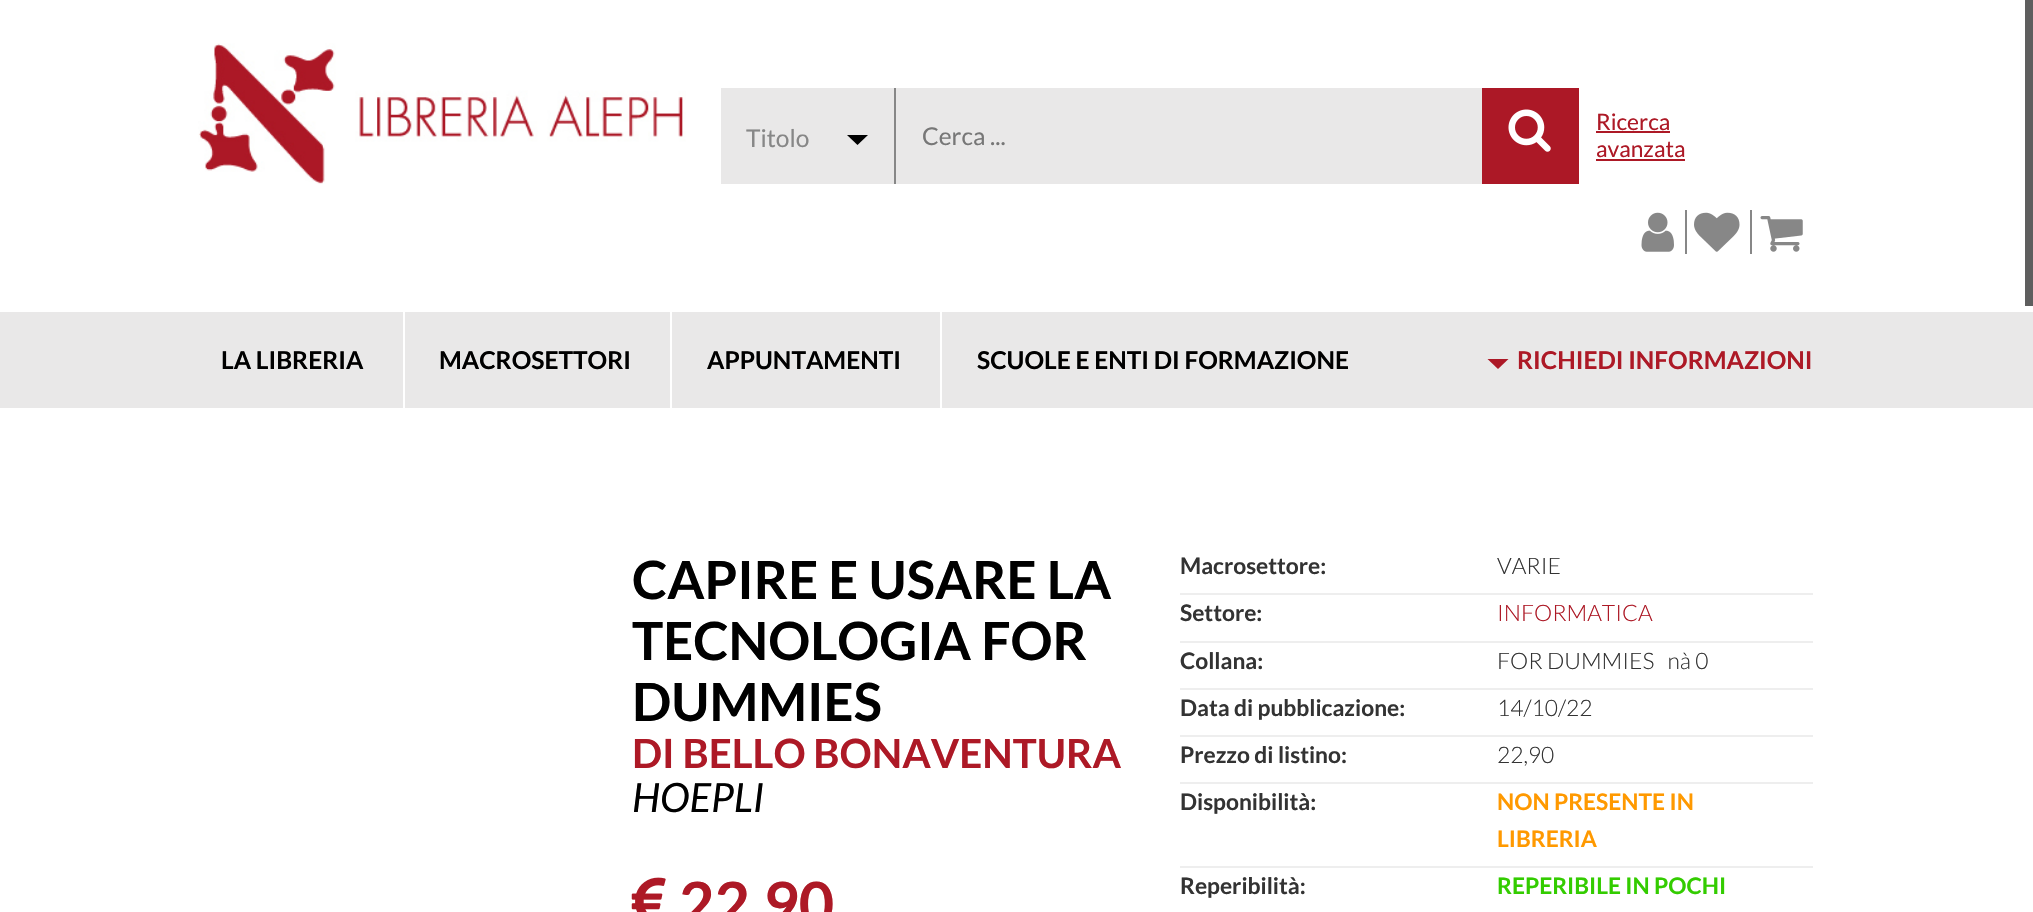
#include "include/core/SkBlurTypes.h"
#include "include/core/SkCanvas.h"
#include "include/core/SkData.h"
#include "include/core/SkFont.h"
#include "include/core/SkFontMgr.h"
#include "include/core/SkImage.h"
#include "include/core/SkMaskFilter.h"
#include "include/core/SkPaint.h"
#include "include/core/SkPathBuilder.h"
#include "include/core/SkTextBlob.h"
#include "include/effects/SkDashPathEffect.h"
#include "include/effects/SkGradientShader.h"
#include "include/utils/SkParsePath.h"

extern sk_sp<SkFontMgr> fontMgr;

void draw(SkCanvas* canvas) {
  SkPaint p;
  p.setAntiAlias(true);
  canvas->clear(SK_ColorWHITE);
  canvas->drawImageRect(SkImages::DeferredFromEncodedData(SkData::MakeFromFileName("images/1.png")), SkRect::MakeLTRB(198, 43, 686, 184), SkSamplingOptions());
  p.setColor(SkColorSetRGB(233, 232, 232));
  canvas->drawRect(SkRect::MakeLTRB(721, 88, 894, 184), p);
  p.setColor(SkColorSetRGB(135, 135, 135));
  canvas->drawRect(SkRect::MakeLTRB(894, 88, 896, 184), p);
  p.setColor(SK_ColorBLACK);
  canvas->drawPath(SkPathBuilder().moveTo(847, 135).lineTo(868, 135).lineTo(857.5f, 145).close().detach(), p);
  p.setColor(SkColorSetRGB(233, 232, 232));
  canvas->drawRect(SkRect::MakeLTRB(896, 88, 1482, 184), p);
  p.setColor(SkColorSetRGB(172, 24, 38));
  canvas->drawRect(SkRect::MakeLTRB(1482, 88, 1579, 184), p);
  canvas->drawImageRect(SkImages::DeferredFromEncodedData(SkData::MakeFromFileName("images/2.png")), SkRect::MakeLTRB(1508, 109, 1551, 152), SkSamplingOptions());
  p.setColor(SkColorSetRGB(173, 25, 38));
  canvas->drawRect(SkRect::MakeLTRB(1596, 131, 1670, 133), p);
  canvas->drawRect(SkRect::MakeLTRB(1596, 159, 1685, 161), p);
  p.setColor(SkColorSetRGB(135, 135, 135));
  canvas->drawRect(SkRect::MakeLTRB(1685, 210, 1687, 254), p);
  canvas->drawImageRect(SkImages::DeferredFromEncodedData(SkData::MakeFromFileName("images/3.png")), SkRect::MakeLTRB(1641, 212, 1674, 252), SkSamplingOptions());
  canvas->drawRect(SkRect::MakeLTRB(1750, 210, 1752, 254), p);
  canvas->drawImageRect(SkImages::DeferredFromEncodedData(SkData::MakeFromFileName("images/4.png")), SkRect::MakeLTRB(1694, 212, 1740, 252), SkSamplingOptions());
  canvas->drawImageRect(SkImages::DeferredFromEncodedData(SkData::MakeFromFileName("images/5.png")), SkRect::MakeLTRB(1760, 216, 1803, 252), SkSamplingOptions());
  p.setColor(SkColorSetRGB(233, 232, 232));
  canvas->drawRect(SkRect::MakeLTRB(0, 312, 2033, 408), p);
  p.setColor(SK_ColorWHITE);
  canvas->drawRect(SkRect::MakeLTRB(403, 312, 405, 408), p);
  canvas->drawRect(SkRect::MakeLTRB(670, 312, 672, 408), p);
  canvas->drawRect(SkRect::MakeLTRB(940, 312, 942, 408), p);
  p.setColor(SkColorSetRGB(172, 24, 38));
  canvas->drawPath(SkPathBuilder().moveTo(1487.5f, 359).lineTo(1508.5f, 359).lineTo(1498, 369).close().detach(), p);
  p.setColor(SkColorSetRGB(94, 94, 94));
  canvas->drawRect(SkRect::MakeLTRB(2025, 0, 2033, 306), p);
  canvas->drawImageRect(SkImages::DeferredFromEncodedData(SkData::MakeFromFileName("images/6.png")), SkRect::MakeLTRB(631, 877, 666, 912), SkSamplingOptions());
  p.setColor(SkColorSetRGB(238, 238, 238));
  canvas->drawRect(SkRect::MakeLTRB(1180, 593, 1813, 595), p);
  canvas->drawRect(SkRect::MakeLTRB(1180, 641, 1813, 643), p);
  canvas->drawRect(SkRect::MakeLTRB(1180, 688, 1813, 690), p);
  canvas->drawRect(SkRect::MakeLTRB(1180, 735, 1813, 737), p);
  canvas->drawRect(SkRect::MakeLTRB(1180, 782, 1813, 784), p);
  canvas->drawRect(SkRect::MakeLTRB(1180, 866, 1813, 868), p);
  SkFont font1(fontMgr->matchFamilyStyle("Lato", SkFontStyle::Normal()), 24.5f);
  font1.setSubpixel(true);
  p.setColor(SkColorSetRGB(135, 135, 135));
  canvas->drawString("Titolo", 746, 147, font1, p);
  p.setColor(SkColorSetRGB(119, 119, 119));
  canvas->drawString("Cerca ...", 922, 145, font1, p);
  SkFont font2(fontMgr->matchFamilyStyle("Lato", SkFontStyle::Normal()), 22.75f);
  font2.setSubpixel(true);
  p.setColor(SkColorSetRGB(173, 25, 38));
  canvas->drawString("Ricerca", 1596, 130, font2, p);
  canvas->drawString("avanzata", 1596, 157, font2, p);
  SkFont font3(fontMgr->matchFamilyStyle("Lato", SkFontStyle::Bold()), 24.5f);
  font3.setSubpixel(true);
  p.setColor(SK_ColorBLACK);
  canvas->drawString("LA LIBRERIA", 221, 369, font3, p);
  canvas->drawString("MACROSETTORI", 439, 369, font3, p);
  canvas->drawString("APPUNTAMENTI", 707, 369, font3, p);
  canvas->drawString("SCUOLE E ENTI DI FORMAZIONE", 977, 369, font3, p);
  p.setColor(SkColorSetRGB(173, 25, 38));
  canvas->drawString("RICHIEDI INFORMAZIONI", 1517, 369, font3, p);
  SkFont font4(fontMgr->matchFamilyStyle("Lato", SkFontStyle::Bold()), 52.5f);
  font4.setSubpixel(true);
  p.setColor(SK_ColorBLACK);
  canvas->drawString("CAPIRE E USARE LA", 632, 599, font4, p);
  canvas->drawString("TECNOLOGIA FOR", 632, 660, font4, p);
  canvas->drawString("DUMMIES", 632, 721, font4, p);
  SkFont font5(fontMgr->matchFamilyStyle("Lato", SkFontStyle::Bold()), 40.25f);
  font5.setSubpixel(true);
  p.setColor(SkColorSetRGB(173, 25, 38));
  canvas->drawString("DI BELLO BONAVENTURA", 632, 768, font5, p);
  SkFont font6(fontMgr->matchFamilyStyle("Lato", SkFontStyle::Italic()), 40.25f);
  font6.setSubpixel(true);
  p.setColor(SK_ColorBLACK);
  canvas->drawString("HOEPLI", 632, 812, font6, p);
  SkFont font7(fontMgr->matchFamilyStyle("Lato", SkFontStyle::Bold()), 61);
  font7.setSubpixel(true);
  p.setColor(SkColorSetRGB(173, 25, 38));
  canvas->drawString("22,90", 679, 926, font7, p);
  SkFont font8(fontMgr->matchFamilyStyle("Lato", SkFontStyle::Bold()), 22.75f);
  font8.setSubpixel(true);
  p.setColor(SkColorSetRGB(51, 51, 51));
  canvas->drawString("Macrosettore:", 1180, 574, font8, p);
  SkFont font9(fontMgr->matchFamilyStyle("Lato", SkFontStyle(300, SkFontStyle::kNormal_Width, SkFontStyle::kUpright_Slant)), 22.75f);
  font9.setSubpixel(true);
  canvas->drawString("VARIE", 1497, 574, font9, p);
  canvas->drawString("Settore:", 1180, 621, font8, p);
  p.setColor(SkColorSetRGB(173, 25, 38));
  canvas->drawString("INFORMATICA", 1497, 621, font9, p);
  p.setColor(SkColorSetRGB(51, 51, 51));
  canvas->drawString("Collana:", 1180, 669, font8, p);
  canvas->drawString("FOR DUMMIES   nà 0", 1497, 669, font9, p);
  canvas->drawString("Data di pubblicazione:", 1180, 716, font8, p);
  canvas->drawString("14/10/22", 1497, 716, font9, p);
  canvas->drawString("Prezzo di listino:", 1180, 763, font8, p);
  canvas->drawString("22,90", 1497, 763, font9, p);
  canvas->drawString("Disponibilità:", 1180, 810, font8, p);
  p.setColor(SkColorSetRGB(255, 153, 0));
  canvas->drawString("NON PRESENTE IN", 1497, 810, font8, p);
  canvas->drawString("LIBRERIA", 1497, 847, font8, p);
  p.setColor(SkColorSetRGB(51, 51, 51));
  canvas->drawString("Reperibilità:", 1180, 894, font8, p);
  p.setColor(SkColorSetRGB(51, 204, 0));
  canvas->drawString("REPERIBILE IN POCHI", 1497, 894, font8, p);
}
